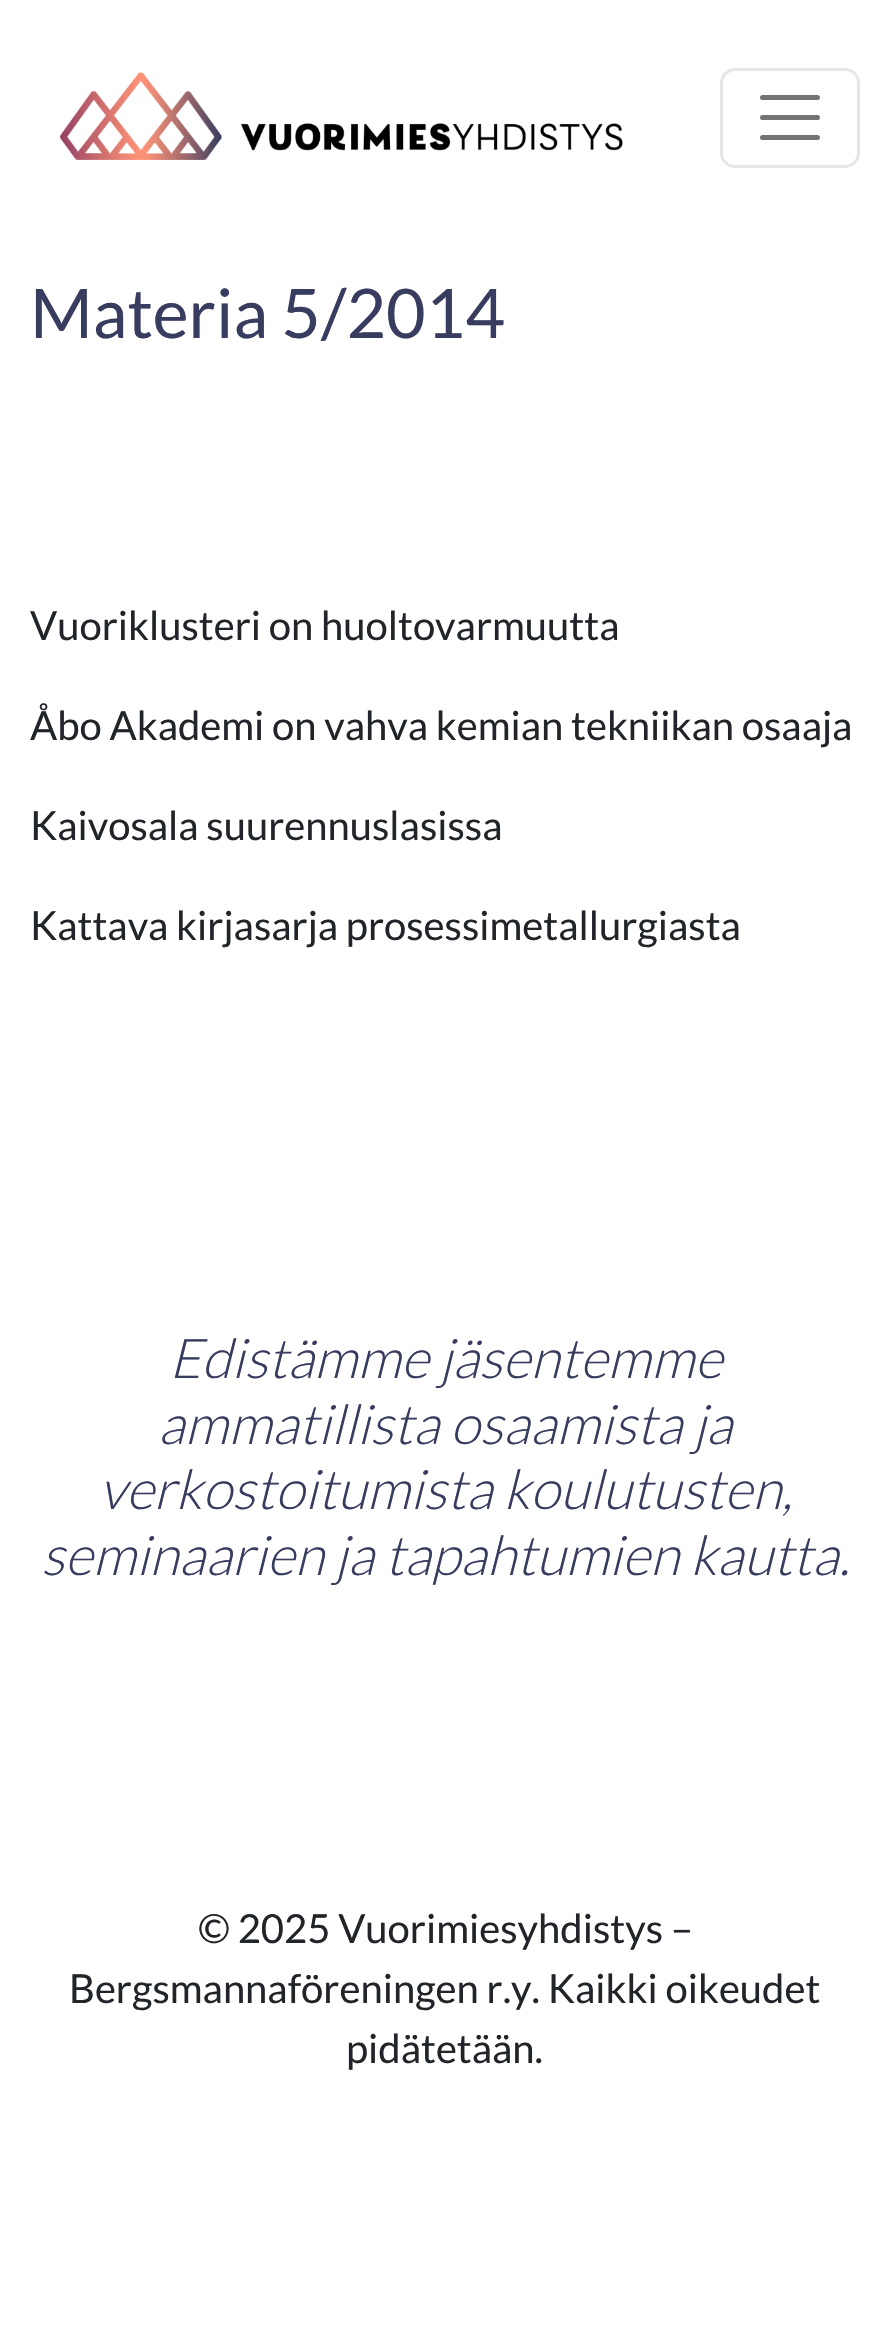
#include "include/core/SkBlurTypes.h"
#include "include/core/SkCanvas.h"
#include "include/core/SkData.h"
#include "include/core/SkFont.h"
#include "include/core/SkFontMgr.h"
#include "include/core/SkImage.h"
#include "include/core/SkMaskFilter.h"
#include "include/core/SkPaint.h"
#include "include/core/SkPathBuilder.h"
#include "include/core/SkTextBlob.h"
#include "include/effects/SkDashPathEffect.h"
#include "include/effects/SkGradientShader.h"
#include "include/utils/SkParsePath.h"

extern sk_sp<SkFontMgr> fontMgr;

void draw(SkCanvas* canvas) {
  SkPaint p;
  p.setAntiAlias(true);
  canvas->clear(SK_ColorWHITE);
  canvas->drawImageRect(SkImages::DeferredFromEncodedData(SkData::MakeFromFileName("images/1.png")), SkRect::MakeLTRB(60, 72, 623, 160), SkSamplingOptions());
  p.setStyle(SkPaint::kStroke_Style);
  p.setStrokeWidth(3);
  p.setColor(SkColorSetRGB(230, 230, 230));
  canvas->drawRoundRect(SkRect::MakeLTRB(721.5f, 69.5f, 858.5f, 166.5f), 13.5f, 13.5f, p);
  p.setStrokeWidth(5);
  p.setStrokeCap(SkPaint::kRound_Cap);
  p.setColor(SkColorSetRGB(115, 115, 115));
  canvas->drawPath(SkPathBuilder().moveTo(762.5f, 97.5f).lineTo(817.5f, 97.5f).moveTo(762.5f, 117.5f).lineTo(817.5f, 117.5f).moveTo(762.5f, 137.5f).lineTo(817.5f, 137.5f).detach(), p);
  SkFont font1(fontMgr->matchFamilyStyle("Lato", SkFontStyle::Normal()), 68.25f);
  font1.setSubpixel(true);
  p.setStyle(SkPaint::kFill_Style);
  p.setColor(SkColorSetRGB(56, 60, 95));
  canvas->drawString("Materia 5/2014", 30, 338, font1, p);
  SkFont font2(fontMgr->matchFamilyStyle("Lato", SkFontStyle::Normal()), 40);
  font2.setSubpixel(true);
  p.setColor(SkColorSetRGB(33, 37, 41));
  canvas->drawString("Vuoriklusteri on huoltovarmuutta", 30, 640, font2, p);
  canvas->drawString("Åbo Akademi on vahva kemian tekniikan osaaja", 30, 740, font2, p);
  canvas->drawString("Kaivosala suurennuslasissa", 30, 840, font2, p);
  canvas->drawString("Kattava kirjasarja prosessimetallurgiasta", 30, 940, font2, p);
  SkFont font3(fontMgr->matchFamilyStyle("Lato", SkFontStyle(300, SkFontStyle::kNormal_Width, SkFontStyle::kItalic_Slant)), 54.7f);
  font3.setSubpixel(true);
  p.setColor(SkColorSetRGB(56, 60, 95));
  canvas->drawString("Edistämme jäsentemme", 169, 1378, font3, p);
  canvas->drawString("ammatillista osaamista ja", 158, 1444, font3, p);
  canvas->drawString("verkostoitumista koulutusten,", 99, 1509, font3, p);
  canvas->drawString("seminaarien ja tapahtumien kautta.", 41, 1575, font3, p);
  p.setColor(SkColorSetRGB(33, 37, 41));
  canvas->drawString("© 2025 Vuorimiesyhdistys –", 198, 1943, font2, p);
  canvas->drawString("Bergsmannaföreningen r.y. Kaikki oikeudet", 69, 2003, font2, p);
  canvas->drawString("pidätetään.", 346, 2063, font2, p);
}
